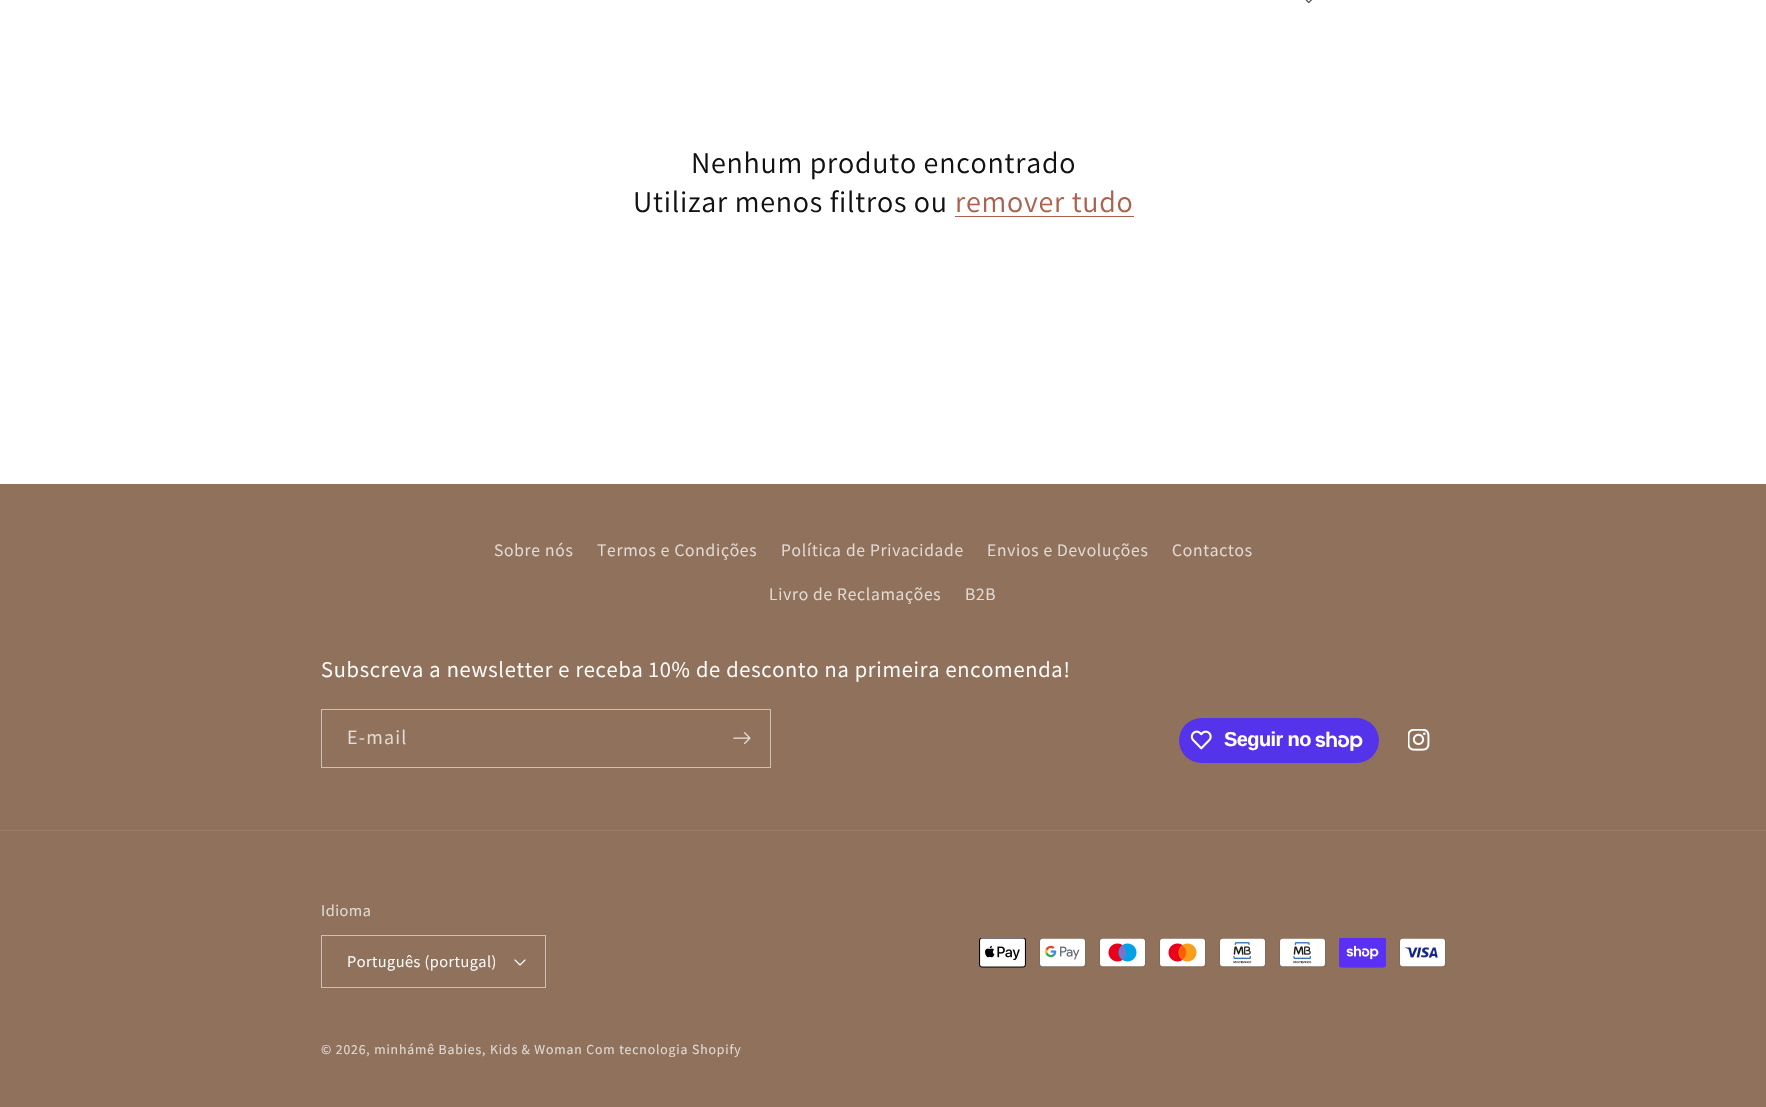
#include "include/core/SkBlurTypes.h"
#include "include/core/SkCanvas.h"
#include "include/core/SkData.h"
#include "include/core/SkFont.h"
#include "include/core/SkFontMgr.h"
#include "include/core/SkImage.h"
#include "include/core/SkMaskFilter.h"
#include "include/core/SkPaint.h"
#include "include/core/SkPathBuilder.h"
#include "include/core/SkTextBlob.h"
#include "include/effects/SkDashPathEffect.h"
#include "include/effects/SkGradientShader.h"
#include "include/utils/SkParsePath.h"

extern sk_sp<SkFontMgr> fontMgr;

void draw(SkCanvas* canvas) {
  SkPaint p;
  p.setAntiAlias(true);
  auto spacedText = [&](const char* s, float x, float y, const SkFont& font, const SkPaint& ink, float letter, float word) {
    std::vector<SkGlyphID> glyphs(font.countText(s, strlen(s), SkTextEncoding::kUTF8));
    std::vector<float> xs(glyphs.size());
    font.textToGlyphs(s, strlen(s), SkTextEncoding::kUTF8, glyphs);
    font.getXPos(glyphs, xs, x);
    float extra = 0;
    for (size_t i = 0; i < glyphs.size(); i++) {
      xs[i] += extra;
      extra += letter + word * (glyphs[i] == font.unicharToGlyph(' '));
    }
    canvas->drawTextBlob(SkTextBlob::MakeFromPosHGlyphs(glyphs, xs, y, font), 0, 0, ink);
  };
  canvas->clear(SK_ColorWHITE);
  canvas->drawImageRect(SkImages::DeferredFromEncodedData(SkData::MakeFromFileName("images/1.png")), SkRect::MakeLTRB(1305, 0, 1312, 4), SkSamplingOptions());
  p.setColor(SkColorSetRGB(172, 97, 79));
  canvas->drawRect(SkRect::MakeLTRB(955, 216, 1134, 217), p);
  p.setColor(SkColorSetRGB(144, 114, 92));
  canvas->drawRect(SkRect::MakeLTRB(0, 484, 1766, 1107), p);
  p.setStyle(SkPaint::kStroke_Style);
  p.setStrokeWidth(1);
  p.setColor(SkColorSetRGB(205, 192, 182));
  canvas->drawRect(SkRect::MakeLTRB(321.5f, 709.5f, 770.5f, 767.5f), p);
  canvas->drawImageRect(SkImages::DeferredFromEncodedData(SkData::MakeFromFileName("images/2.png")), SkRect::MakeLTRB(733, 732, 751, 745), SkSamplingOptions());
  p.setStyle(SkPaint::kFill_Style);
  p.setColor(SkColorSetRGB(84, 51, 235));
  canvas->drawRoundRect(SkRect::MakeLTRB(1179, 718, 1379, 763), 22.5f, 22.5f, p);
  canvas->drawImageRect(SkImages::DeferredFromEncodedData(SkData::MakeFromFileName("images/3.png")), SkRect::MakeLTRB(1190, 730, 1212, 750), SkSamplingOptions());
  canvas->drawImageRect(SkImages::DeferredFromEncodedData(SkData::MakeFromFileName("images/4.png")), SkRect::MakeLTRB(1315, 731, 1363, 751), SkSamplingOptions());
  canvas->drawImageRect(SkImages::DeferredFromEncodedData(SkData::MakeFromFileName("images/5.png")), SkRect::MakeLTRB(1408, 729, 1430, 751), SkSamplingOptions());
  p.setColor(SkColorSetRGB(153, 125, 105));
  canvas->drawRect(SkRect::MakeLTRB(0, 830, 1766, 831), p);
  canvas->drawImageRect(SkImages::DeferredFromEncodedData(SkData::MakeFromFileName("images/6.png")), SkRect::MakeLTRB(514, 959, 526, 966), SkSamplingOptions());
  p.setStyle(SkPaint::kStroke_Style);
  p.setColor(SkColorSetRGB(205, 192, 182));
  canvas->drawRect(SkRect::MakeLTRB(321.5f, 935.5f, 545.5f, 987.5f), p);
  canvas->drawImageRect(SkImages::DeferredFromEncodedData(SkData::MakeFromFileName("images/7.png")), SkRect::MakeLTRB(979, 938, 1026, 968), SkSamplingOptions());
  canvas->drawImageRect(SkImages::DeferredFromEncodedData(SkData::MakeFromFileName("images/8.png")), SkRect::MakeLTRB(1039, 938, 1086, 968), SkSamplingOptions());
  canvas->drawImageRect(SkImages::DeferredFromEncodedData(SkData::MakeFromFileName("images/9.png")), SkRect::MakeLTRB(1099, 938, 1146, 968), SkSamplingOptions());
  canvas->drawImageRect(SkImages::DeferredFromEncodedData(SkData::MakeFromFileName("images/10.png")), SkRect::MakeLTRB(1159, 938, 1206, 968), SkSamplingOptions());
  canvas->drawImageRect(SkImages::DeferredFromEncodedData(SkData::MakeFromFileName("images/11.png")), SkRect::MakeLTRB(1219, 938, 1266, 968), SkSamplingOptions());
  canvas->drawImageRect(SkImages::DeferredFromEncodedData(SkData::MakeFromFileName("images/11.png")), SkRect::MakeLTRB(1279, 938, 1326, 968), SkSamplingOptions());
  canvas->drawImageRect(SkImages::DeferredFromEncodedData(SkData::MakeFromFileName("images/12.png")), SkRect::MakeLTRB(1339, 938, 1386, 968), SkSamplingOptions());
  canvas->drawImageRect(SkImages::DeferredFromEncodedData(SkData::MakeFromFileName("images/13.png")), SkRect::MakeLTRB(1399, 938, 1446, 968), SkSamplingOptions());
  SkFont font1(fontMgr->matchFamilyStyle("Assistant", SkFontStyle::Normal()), 30);
  font1.setSubpixel(true);
  p.setStyle(SkPaint::kFill_Style);
  p.setColor(SkColorSetRGB(18, 18, 18));
  spacedText("Nenhum produto encontrado", 691, 173, font1, p, 0.75f, 0);
  spacedText("Utilizar menos filtros ou", 633, 212, font1, p, 0.75f, 0);
  p.setColor(SkColorSetRGB(172, 97, 79));
  spacedText("remover tudo", 955, 212, font1, p, 0.75f, 0);
  SkFont font2(fontMgr->matchFamilyStyle("Assistant", SkFontStyle::Normal()), 17.5f);
  font2.setSubpixel(true);
  p.setColor(SkColorSetRGB(227, 220, 214));
  spacedText("Sobre nós", 494, 556, font2, p, 0.75f, 0);
  spacedText("Termos e Condições", 597, 556, font2, p, 0.75f, 0);
  spacedText("Política de Privacidade", 781, 556, font2, p, 0.75f, 0);
  spacedText("Envios e Devoluções", 987, 556, font2, p, 0.75f, 0);
  spacedText("Contactos", 1172, 556, font2, p, 0.75f, 0);
  spacedText("Livro de Reclamações", 769, 600, font2, p, 0.75f, 0);
  spacedText("B2B", 965, 600, font2, p, 0.75f, 0);
  SkFont font3(fontMgr->matchFamilyStyle("Assistant", SkFontStyle::Normal()), 22.5f);
  font3.setSubpixel(true);
  p.setColor(SK_ColorWHITE);
  spacedText("Subscreva a newsletter e receba 10% de desconto na primeira encomenda!", 321, 677, font3, p, 0.75f, 0);
  SkFont font4(fontMgr->matchFamilyStyle("Assistant", SkFontStyle::Normal()), 20);
  font4.setSubpixel(true);
  p.setColor(SkColorSetRGB(227, 220, 214));
  spacedText("E-mail", 347, 744, font4, p, 1.25f, 0);
  SkFont font5(fontMgr->matchFamilyStyle("Liberation Sans", SkFontStyle::Bold()), 20);
  font5.setSubpixel(true);
  p.setColor(SK_ColorWHITE);
  spacedText("Seguir no", 1224, 746, font5, p, -0.6f, 0);
  SkFont font6(fontMgr->matchFamilyStyle("Assistant", SkFontStyle::Normal()), 16.25f);
  font6.setSubpixel(true);
  p.setColor(SkColorSetRGB(227, 220, 214));
  spacedText("Idioma", 321, 916, font6, p, 0.5f, 0);
  p.setColor(SK_ColorWHITE);
  spacedText("Português (portugal)", 347, 967, font6, p, 0.5f, 0);
  SkFont font7(fontMgr->matchFamilyStyle("Assistant", SkFontStyle::Normal()), 13.75f);
  font7.setSubpixel(true);
  p.setColor(SkColorSetRGB(227, 220, 214));
  spacedText("© 2026, minhámê Babies, Kids & Woman Com tecnologia Shopify", 321, 1054, font7, p, 0.88f, 0);
}
